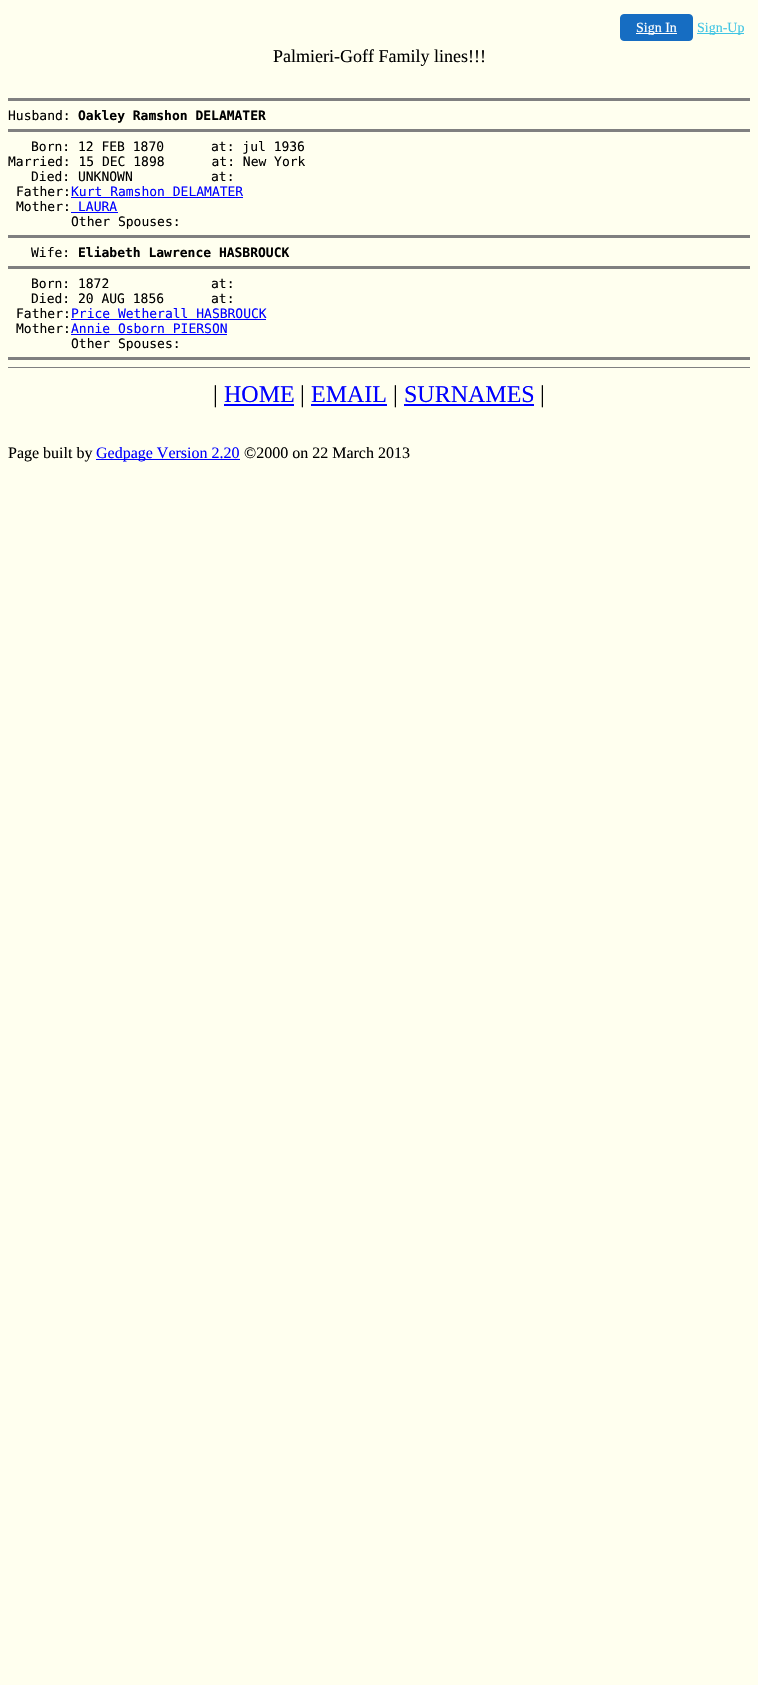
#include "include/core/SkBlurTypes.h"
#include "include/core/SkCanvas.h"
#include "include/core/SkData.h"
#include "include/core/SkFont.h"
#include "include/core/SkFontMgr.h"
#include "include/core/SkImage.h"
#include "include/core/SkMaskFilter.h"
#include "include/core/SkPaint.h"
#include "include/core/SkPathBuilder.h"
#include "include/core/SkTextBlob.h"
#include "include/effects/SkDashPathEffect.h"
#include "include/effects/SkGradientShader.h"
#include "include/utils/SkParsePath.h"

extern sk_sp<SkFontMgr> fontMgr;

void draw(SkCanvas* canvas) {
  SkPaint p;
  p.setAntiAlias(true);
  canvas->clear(SkColorSetRGB(255, 255, 239));
  p.setColor(SkColorSetRGB(22, 109, 194));
  canvas->drawRoundRect(SkRect::MakeLTRB(620.5f, 14.5f, 692.5f, 40.5f), 3.5f, 3.5f, p);
  p.setStyle(SkPaint::kStroke_Style);
  p.setStrokeWidth(1);
  canvas->drawRoundRect(SkRect::MakeLTRB(620.5f, 14.5f, 692.5f, 40.5f), 3.5f, 3.5f, p);
  p.setStyle(SkPaint::kFill_Style);
  p.setColor(SK_ColorWHITE);
  canvas->drawRect(SkRect::MakeLTRB(636, 33, 677, 34), p);
  p.setColor(SkColorSetRGB(65, 197, 228));
  canvas->drawRect(SkRect::MakeLTRB(697, 33, 744, 34), p);
  p.setColor(SkColorSetRGB(128, 128, 128));
  canvas->drawRect(SkRect::MakeLTRB(8, 98, 750, 101), p);
  canvas->drawRect(SkRect::MakeLTRB(8, 129, 750, 132), p);
  p.setColor(SkColorSetRGB(0, 0, 255));
  canvas->drawRect(SkRect::MakeLTRB(71, 197, 243, 198), p);
  canvas->drawRect(SkRect::MakeLTRB(71, 212, 118, 213), p);
  p.setColor(SkColorSetRGB(128, 128, 128));
  canvas->drawRect(SkRect::MakeLTRB(8, 235, 750, 238), p);
  canvas->drawRect(SkRect::MakeLTRB(8, 266, 750, 269), p);
  p.setColor(SkColorSetRGB(0, 0, 255));
  canvas->drawRect(SkRect::MakeLTRB(71, 319, 266, 320), p);
  canvas->drawRect(SkRect::MakeLTRB(71, 334, 227, 335), p);
  p.setColor(SkColorSetRGB(128, 128, 128));
  canvas->drawRect(SkRect::MakeLTRB(8, 357, 750, 360), p);
  canvas->drawRect(SkRect::MakeLTRB(8, 367, 750, 368), p);
  p.setColor(SkColorSetRGB(0, 0, 255));
  canvas->drawRect(SkRect::MakeLTRB(224, 404, 294, 406), p);
  canvas->drawRect(SkRect::MakeLTRB(311, 404, 387, 406), p);
  canvas->drawRect(SkRect::MakeLTRB(404, 404, 534, 406), p);
  canvas->drawRect(SkRect::MakeLTRB(96, 459, 240, 460), p);
  SkFont font1(fontMgr->matchFamilyStyle("Liberation Serif", SkFontStyle::Normal()), 14);
  font1.setSubpixel(true);
  p.setColor(SK_ColorWHITE);
  canvas->drawString("Sign In", 636, 32, font1, p);
  p.setColor(SkColorSetRGB(65, 197, 228));
  canvas->drawString("Sign-Up", 697, 32, font1, p);
  SkFont font2(fontMgr->matchFamilyStyle("Liberation Serif", SkFontStyle::Normal()), 18);
  font2.setSubpixel(true);
  p.setColor(SK_ColorBLACK);
  canvas->drawString("Palmieri-Goff Family lines!!!", 273, 62, font2, p);
  SkFont font3(fontMgr->matchFamilyStyle("DejaVu Sans Mono", SkFontStyle::Normal()), 13);
  font3.setSubpixel(true);
  canvas->drawString("Husband:", 8, 120, font3, p);
  SkFont font4(fontMgr->matchFamilyStyle("DejaVu Sans Mono", SkFontStyle::Bold()), 13);
  font4.setSubpixel(true);
  canvas->drawString("Oakley Ramshon DELAMATER", 78, 120, font4, p);
  canvas->drawString("Born: 12 FEB 1870      at: jul 1936", 31, 151, font3, p);
  canvas->drawString("Married: 15 DEC 1898      at: New York", 8, 166, font3, p);
  canvas->drawString("Died: UNKNOWN          at:", 31, 181, font3, p);
  canvas->drawString("Father:", 16, 196, font3, p);
  p.setColor(SkColorSetRGB(0, 0, 255));
  canvas->drawString("Kurt Ramshon DELAMATER", 71, 196, font3, p);
  p.setColor(SK_ColorBLACK);
  canvas->drawString("Mother:", 16, 211, font3, p);
  p.setColor(SkColorSetRGB(0, 0, 255));
  canvas->drawString("LAURA", 78, 211, font3, p);
  p.setColor(SK_ColorBLACK);
  canvas->drawString("Other Spouses:", 71, 226, font3, p);
  canvas->drawString("Wife:", 31, 257, font3, p);
  canvas->drawString("Eliabeth Lawrence HASBROUCK", 78, 257, font4, p);
  canvas->drawString("Born: 1872             at:", 31, 288, font3, p);
  canvas->drawString("Died: 20 AUG 1856      at:", 31, 303, font3, p);
  canvas->drawString("Father:", 16, 318, font3, p);
  p.setColor(SkColorSetRGB(0, 0, 255));
  canvas->drawString("Price Wetherall HASBROUCK", 71, 318, font3, p);
  p.setColor(SK_ColorBLACK);
  canvas->drawString("Mother:", 16, 333, font3, p);
  p.setColor(SkColorSetRGB(0, 0, 255));
  canvas->drawString("Annie Osborn PIERSON", 71, 333, font3, p);
  p.setColor(SK_ColorBLACK);
  canvas->drawString("Other Spouses:", 71, 348, font3, p);
  SkFont font5(fontMgr->matchFamilyStyle("Liberation Serif", SkFontStyle::Normal()), 24);
  font5.setSubpixel(true);
  canvas->drawString("|", 213, 402, font5, p);
  p.setColor(SkColorSetRGB(0, 0, 255));
  canvas->drawString("HOME", 224, 402, font5, p);
  p.setColor(SK_ColorBLACK);
  canvas->drawString("|", 300, 402, font5, p);
  p.setColor(SkColorSetRGB(0, 0, 255));
  canvas->drawString("EMAIL", 311, 402, font5, p);
  p.setColor(SK_ColorBLACK);
  canvas->drawString("|", 393, 402, font5, p);
  p.setColor(SkColorSetRGB(0, 0, 255));
  canvas->drawString("SURNAMES", 404, 402, font5, p);
  p.setColor(SK_ColorBLACK);
  canvas->drawString("|", 540, 402, font5, p);
  SkFont font6(fontMgr->matchFamilyStyle("Liberation Serif", SkFontStyle::Normal()), 16);
  font6.setSubpixel(true);
  canvas->drawString("Page built by", 8, 458, font6, p);
  p.setColor(SkColorSetRGB(0, 0, 255));
  canvas->drawString("Gedpage Version 2.20", 96, 458, font6, p);
  p.setColor(SK_ColorBLACK);
  canvas->drawString("©2000 on 22 March 2013", 244, 458, font6, p);
}
